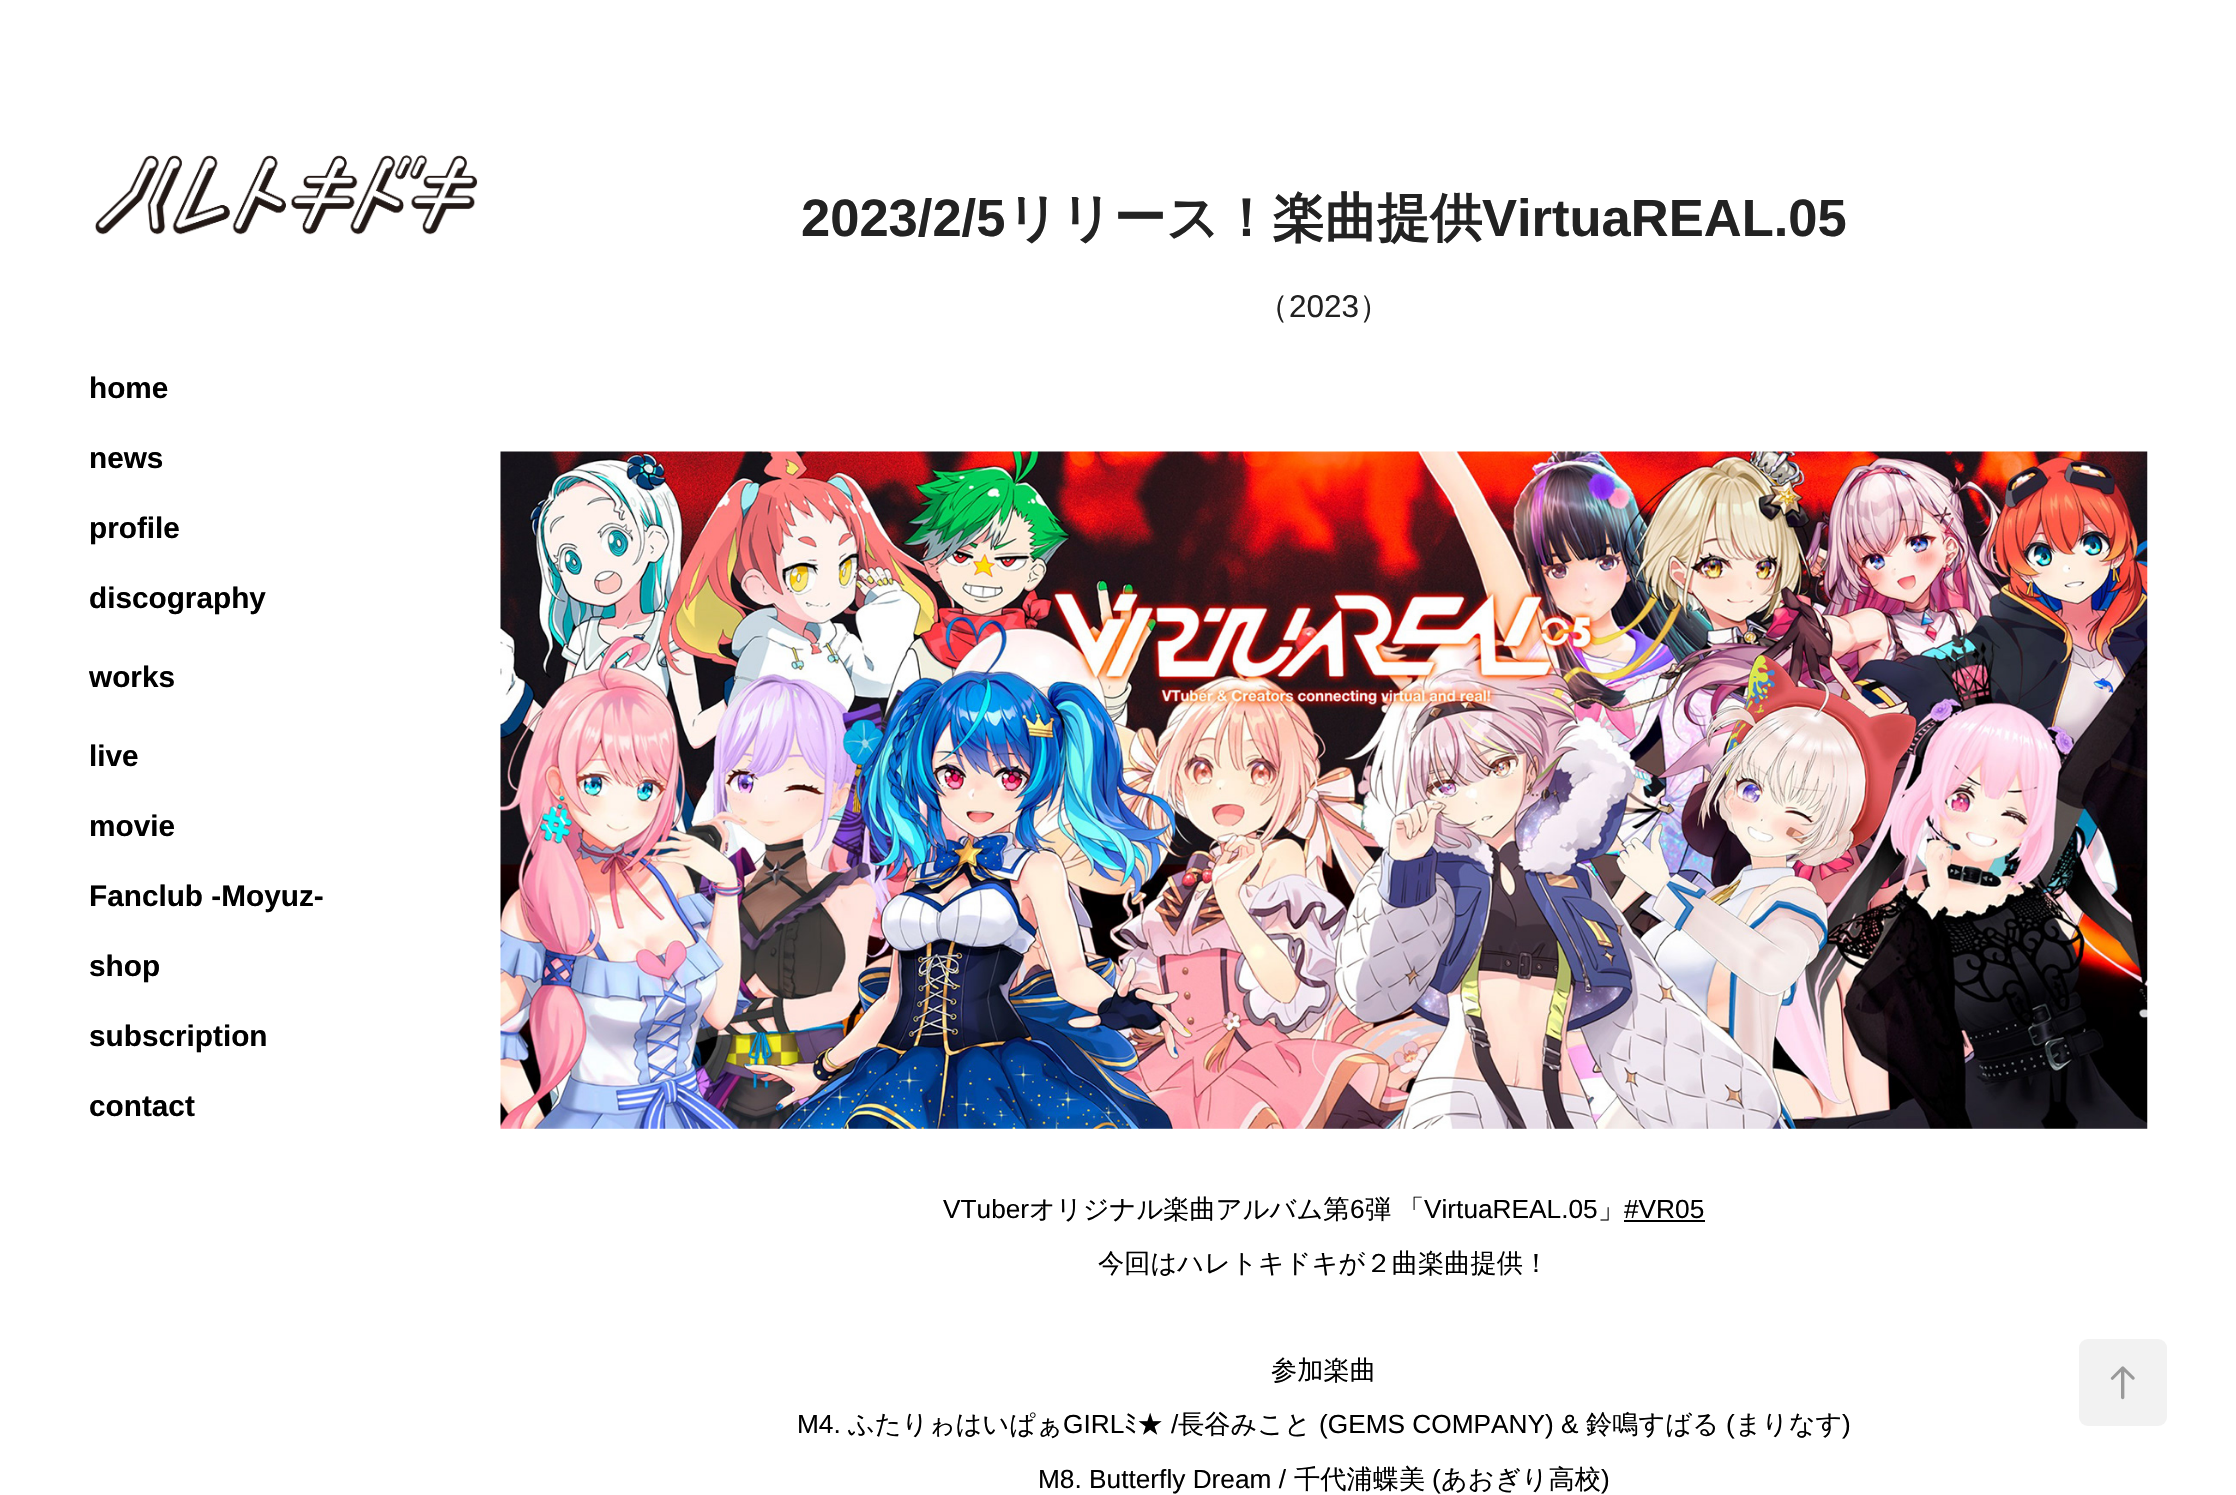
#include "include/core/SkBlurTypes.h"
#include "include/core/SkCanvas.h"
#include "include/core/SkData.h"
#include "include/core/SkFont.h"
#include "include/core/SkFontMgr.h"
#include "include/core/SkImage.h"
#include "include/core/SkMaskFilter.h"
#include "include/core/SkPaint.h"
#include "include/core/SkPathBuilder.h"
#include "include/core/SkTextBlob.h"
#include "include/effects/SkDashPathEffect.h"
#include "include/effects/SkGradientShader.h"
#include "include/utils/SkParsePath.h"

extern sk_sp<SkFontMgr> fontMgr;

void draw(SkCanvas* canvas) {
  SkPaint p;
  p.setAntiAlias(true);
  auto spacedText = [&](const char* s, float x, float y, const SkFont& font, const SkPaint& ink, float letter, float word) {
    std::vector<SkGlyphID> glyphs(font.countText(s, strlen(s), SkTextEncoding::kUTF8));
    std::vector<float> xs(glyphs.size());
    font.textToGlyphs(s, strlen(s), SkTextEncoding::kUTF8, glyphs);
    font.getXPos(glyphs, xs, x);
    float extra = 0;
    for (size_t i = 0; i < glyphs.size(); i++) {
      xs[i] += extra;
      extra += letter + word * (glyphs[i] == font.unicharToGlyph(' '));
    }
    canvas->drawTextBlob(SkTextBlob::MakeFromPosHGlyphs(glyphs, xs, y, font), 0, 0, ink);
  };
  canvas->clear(SK_ColorWHITE);
  canvas->drawImageRect(SkImages::DeferredFromEncodedData(SkData::MakeFromFileName("images/1.png")), SkRect::MakeLTRB(95, 155, 478, 235), SkSamplingOptions());
  canvas->drawImageRect(SkImages::DeferredFromEncodedData(SkData::MakeFromFileName("images/2.png")), SkRect::MakeLTRB(500, 451, 2148, 1129), SkSamplingOptions());
  p.setColor(SK_ColorBLACK);
  canvas->drawRect(SkRect::MakeLTRB(1624, 1220, 1705, 1222), p);
  p.setColor(SkColorSetRGB(242, 242, 242));
  canvas->drawRoundRect(SkRect::MakeLTRB(2079, 1339, 2167, 1426), 9, 9, p);
  canvas->drawImageRect(SkImages::DeferredFromEncodedData(SkData::MakeFromFileName("images/3.png")), SkRect::MakeLTRB(2110, 1366, 2135, 1400), SkSamplingOptions());
  SkFont font1(fontMgr->matchFamilyStyle("Liberation Sans", SkFontStyle::Bold()), 29.75f);
  font1.setSubpixel(true);
  p.setColor(SK_ColorBLACK);
  canvas->drawString("home", 89, 398, font1, p);
  canvas->drawString("news", 89, 468, font1, p);
  canvas->drawString("profile", 89, 538, font1, p);
  canvas->drawString("discography", 89, 608, font1, p);
  canvas->drawString("works", 89, 687, font1, p);
  canvas->drawString("live", 89, 766, font1, p);
  canvas->drawString("movie", 89, 836, font1, p);
  canvas->drawString("Fanclub -Moyuz-", 89, 906, font1, p);
  canvas->drawString("shop", 89, 976, font1, p);
  canvas->drawString("subscription", 89, 1046, font1, p);
  canvas->drawString("contact", 89, 1116, font1, p);
  SkFont font2(fontMgr->matchFamilyStyle("Liberation Sans", SkFontStyle::Bold()), 52.5f);
  font2.setSubpixel(true);
  p.setColor(SkColorSetRGB(34, 34, 34));
  canvas->drawString("2023/2/5", 801, 236, font2, p);
  SkFont font3(fontMgr->matchFamilyStyle("WenQuanYi Zen Hei", SkFontStyle::Bold()), 52.5f);
  font3.setSubpixel(true);
  canvas->drawString("リリース！楽曲提供", 1006, 236, font3, p);
  canvas->drawString("VirtuaREAL.05", 1482, 236, font2, p);
  SkFont font4(fontMgr->matchFamilyStyle("WenQuanYi Zen Hei", SkFontStyle(500, SkFontStyle::kNormal_Width, SkFontStyle::kUpright_Slant)), 31.5f);
  font4.setSubpixel(true);
  canvas->drawString("（", 1257, 317, font4, p);
  SkFont font5(fontMgr->matchFamilyStyle("Liberation Sans", SkFontStyle::Normal()), 31.5f);
  font5.setSubpixel(true);
  canvas->drawString("2023", 1289, 317, font5, p);
  canvas->drawString("）", 1359, 317, font4, p);
  SkFont font6(fontMgr->matchFamilyStyle("Liberation Sans", SkFontStyle::Normal()), 26.25f);
  font6.setSubpixel(true);
  p.setColor(SK_ColorBLACK);
  canvas->drawString("VTuber", 943, 1218, font6, p);
  SkFont font7(fontMgr->matchFamilyStyle("WenQuanYi Zen Hei", SkFontStyle(500, SkFontStyle::kNormal_Width, SkFontStyle::kUpright_Slant)), 26.25f);
  font7.setSubpixel(true);
  canvas->drawString("オリジナル楽曲アルバム第", 1029, 1218, font7, p);
  canvas->drawString("6", 1350, 1218, font6, p);
  spacedText("弾 「", 1365, 1218, font7, p, 0, -1);
  canvas->drawString("VirtuaREAL.05", 1424, 1218, font6, p);
  canvas->drawString("」", 1598, 1218, font7, p);
  canvas->drawString("#VR05", 1624, 1218, font6, p);
  canvas->drawString("今回はハレトキドキが２曲楽曲提供！", 1098, 1272, font7, p);
  canvas->drawString("参加楽曲", 1271, 1379, font7, p);
  canvas->drawString("M4.", 797, 1433, font6, p);
  canvas->drawString("ふたりゎはいぱぁ", 848, 1433, font7, p);
  canvas->drawString("GIRL", 1063, 1433, font6, p);
  SkFont font8(fontMgr->matchFamilyStyle("IPAGothic", SkFontStyle::Normal()), 26.25f);
  font8.setSubpixel(true);
  canvas->drawString("ﾐ", 1124, 1433, font8, p);
  canvas->drawString("★", 1137, 1433, font7, p);
  canvas->drawString("/", 1171, 1433, font6, p);
  canvas->drawString("長谷みこと", 1178, 1433, font7, p);
  canvas->drawString("(GEMS COMPANY) &", 1319, 1433, font6, p);
  canvas->drawString("鈴鳴すばる", 1586, 1433, font7, p);
  canvas->drawString("(", 1726, 1433, font6, p);
  canvas->drawString("まりなす", 1735, 1433, font7, p);
  canvas->drawString(")", 1842, 1433, font6, p);
  canvas->drawString("M8. Butterfly Dream /", 1038, 1488, font6, p);
  canvas->drawString("千代浦蝶美", 1294, 1488, font7, p);
  canvas->drawString("(", 1432, 1488, font6, p);
  canvas->drawString("あおぎり高校", 1441, 1488, font7, p);
  canvas->drawString(")", 1601, 1488, font6, p);
}
